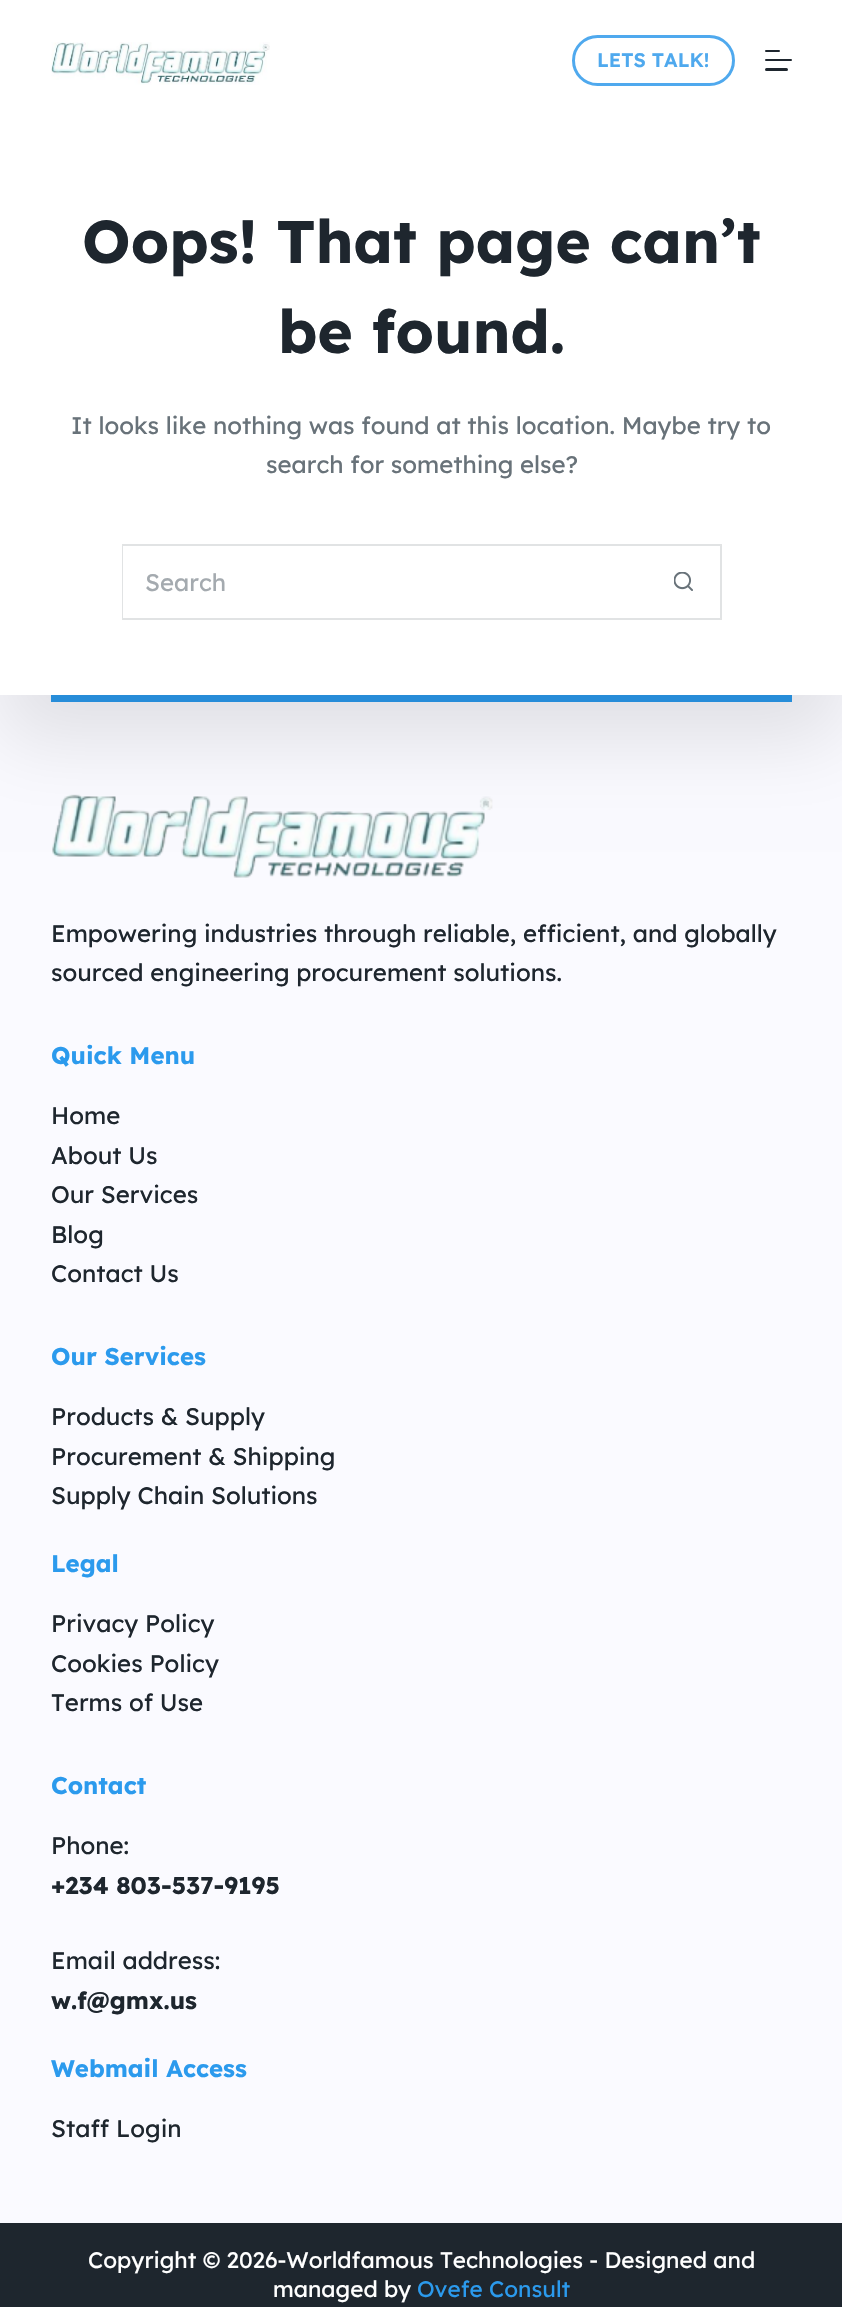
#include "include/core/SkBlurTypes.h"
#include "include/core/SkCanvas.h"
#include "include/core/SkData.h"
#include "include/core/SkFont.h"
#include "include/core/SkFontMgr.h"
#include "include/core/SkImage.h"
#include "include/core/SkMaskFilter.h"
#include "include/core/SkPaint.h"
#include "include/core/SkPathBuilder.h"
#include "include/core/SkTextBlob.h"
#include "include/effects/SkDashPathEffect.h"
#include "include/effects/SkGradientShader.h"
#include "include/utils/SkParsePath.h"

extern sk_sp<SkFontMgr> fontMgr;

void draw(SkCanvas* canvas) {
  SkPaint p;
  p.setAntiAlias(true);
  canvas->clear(SkColorSetRGB(250, 250, 255));
  p.setColor(SkColorSetRGB(43, 154, 237));
  canvas->drawRect(SkRect::MakeLTRB(51, 695, 792, 702), p);
  canvas->drawImageRect(SkImages::DeferredFromEncodedData(SkData::MakeFromFileName("images/3.png")), SkRect::MakeLTRB(52, 794, 493, 878), SkSamplingOptions());
  p.setColor(SkColorSetARGB(26, 0, 0, 0));
  p.setMaskFilter(SkMaskFilter::MakeBlur(kNormal_SkBlurStyle, 37.5f));
  canvas->drawRect(SkRect::MakeLTRB(0, 165, 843, 740), p);
  p.setMaskFilter(nullptr);
  p.setColor(SK_ColorWHITE);
  canvas->drawRect(SkRect::MakeLTRB(0, 0, 842, 695), p);
  canvas->drawImageRect(SkImages::DeferredFromEncodedData(SkData::MakeFromFileName("images/1.png")), SkRect::MakeLTRB(51, 42, 270, 85), SkSamplingOptions());
  p.setStyle(SkPaint::kStroke_Style);
  p.setStrokeWidth(3);
  p.setColor(SkColorSetRGB(79, 169, 238));
  canvas->drawRoundRect(SkRect::MakeLTRB(573.5f, 36.5f, 733.5f, 84.5f), 24, 24, p);
  p.setStyle(SkPaint::kFill_Style);
  p.setColor(SkColorSetRGB(30, 38, 46));
  canvas->drawRoundRect(SkRect::MakeLTRB(765, 50, 780, 52), 1, 1, p);
  canvas->drawRoundRect(SkRect::MakeLTRB(765, 59, 792, 61), 1, 1, p);
  canvas->drawRoundRect(SkRect::MakeLTRB(765, 68, 788, 71), 1.5f, 1.5f, p);
  p.setColor(SkColorSetRGB(225, 227, 228));
  canvas->drawPath(SkPathBuilder().moveTo(122, 544).lineTo(646, 544).lineTo(646, 546).lineTo(123, 546).close().detach(), p);
  canvas->drawPath(SkPathBuilder().moveTo(646, 620).lineTo(122, 620).lineTo(123, 618).lineTo(646, 618).close().detach(), p);
  p.setColor(SkColorSetARGB(51, 103, 113, 120));
  canvas->drawPath(SkPathBuilder().moveTo(122, 620).lineTo(122, 544).lineTo(123, 546).lineTo(123, 618).close().detach(), p);
  p.setColor(SkColorSetRGB(225, 227, 228));
  canvas->drawPath(SkPathBuilder().moveTo(646, 544).lineTo(722, 544).lineTo(720, 546).lineTo(646, 546).close().detach(), p);
  p.setColor(SkColorSetARGB(51, 103, 113, 120));
  canvas->drawPath(SkPathBuilder().moveTo(722, 544).lineTo(722, 620).lineTo(720, 618).lineTo(720, 546).close().detach(), p);
  canvas->drawPath(SkPathBuilder().moveTo(722, 620).lineTo(646, 620).lineTo(646, 618).lineTo(720, 618).close().detach(), p);
  canvas->drawImageRect(SkImages::DeferredFromEncodedData(SkData::MakeFromFileName("images/2.png")), SkRect::MakeLTRB(674, 572, 693, 591), SkSamplingOptions());
  p.setColor(SkColorSetRGB(30, 38, 46));
  canvas->drawRect(SkRect::MakeLTRB(0, 2223, 842, 2307), p);
  SkFont font1(fontMgr->matchFamilyStyle("Lexend", SkFontStyle(600, SkFontStyle::kNormal_Width, SkFontStyle::kUpright_Slant)), 19.5f);
  font1.setSubpixel(true);
  p.setColor(SkColorSetRGB(79, 169, 238));
  canvas->drawString("LETS TALK!", 597, 67, font1, p);
  SkFont font2(fontMgr->matchFamilyStyle("Lexend", SkFontStyle::Bold()), 60);
  font2.setSubpixel(true);
  p.setColor(SkColorSetRGB(30, 38, 46));
  canvas->drawString("Oops! That page can’t", 82, 263, font2, p);
  canvas->drawString("be found.", 278, 353, font2, p);
  SkFont font3(fontMgr->matchFamilyStyle("Lexend", SkFontStyle::Normal()), 24);
  font3.setSubpixel(true);
  p.setColor(SkColorSetRGB(104, 114, 121));
  canvas->drawString("It looks like nothing was found at this location. Maybe try to", 71, 434, font3, p);
  canvas->drawString("search for something else?", 266, 473, font3, p);
  p.setColor(SkColorSetRGB(164, 170, 175));
  canvas->drawString("Search", 145, 591, font3, p);
  p.setColor(SkColorSetRGB(30, 38, 46));
  canvas->drawString("Empowering industries through reliable, efficient, and globally", 51, 942, font3, p);
  canvas->drawString("sourced engineering procurement solutions.", 51, 981, font3, p);
  SkFont font4(fontMgr->matchFamilyStyle("Lexend", SkFontStyle::Bold()), 24);
  font4.setSubpixel(true);
  p.setColor(SkColorSetRGB(43, 154, 237));
  canvas->drawString("Quick Menu", 51, 1064, font4, p);
  p.setColor(SkColorSetRGB(30, 38, 46));
  canvas->drawString("Home", 51, 1124, font3, p);
  canvas->drawString("About Us", 51, 1164, font3, p);
  canvas->drawString("Our Services", 51, 1203, font3, p);
  canvas->drawString("Blog", 51, 1243, font3, p);
  canvas->drawString("Contact Us", 51, 1282, font3, p);
  p.setColor(SkColorSetRGB(43, 154, 237));
  canvas->drawString("Our Services", 51, 1365, font4, p);
  p.setColor(SkColorSetRGB(30, 38, 46));
  canvas->drawString("Products & Supply", 51, 1425, font3, p);
  canvas->drawString("Procurement & Shipping", 51, 1465, font3, p);
  canvas->drawString("Supply Chain Solutions", 51, 1504, font3, p);
  p.setColor(SkColorSetRGB(43, 154, 237));
  canvas->drawString("Legal", 51, 1572, font4, p);
  p.setColor(SkColorSetRGB(30, 38, 46));
  canvas->drawString("Privacy Policy", 51, 1632, font3, p);
  canvas->drawString("Cookies Policy", 51, 1672, font3, p);
  canvas->drawString("Terms of Use", 51, 1711, font3, p);
  p.setColor(SkColorSetRGB(43, 154, 237));
  canvas->drawString("Contact", 51, 1794, font4, p);
  p.setColor(SkColorSetRGB(30, 38, 46));
  canvas->drawString("Phone:", 51, 1854, font3, p);
  canvas->drawString("+234 803-537-9195", 51, 1894, font4, p);
  canvas->drawString("Email address:", 51, 1969, font3, p);
  canvas->drawString("w.f@gmx.us", 51, 2009, font4, p);
  p.setColor(SkColorSetRGB(43, 154, 237));
  canvas->drawString("Webmail Access", 51, 2077, font4, p);
  p.setColor(SkColorSetRGB(30, 38, 46));
  canvas->drawString("Staff Login", 51, 2137, font3, p);
  SkFont font5(fontMgr->matchFamilyStyle("Lexend", SkFontStyle::Normal()), 22.5f);
  font5.setSubpixel(true);
  p.setColor(SK_ColorWHITE);
  canvas->drawString("Copyright © 2026-Worldfamous Technologies - Designed and", 88, 2268, font5, p);
  canvas->drawString("managed by", 273, 2297, font5, p);
  p.setColor(SkColorSetRGB(43, 154, 237));
  canvas->drawString("Ovefe Consult", 417, 2297, font5, p);
}
